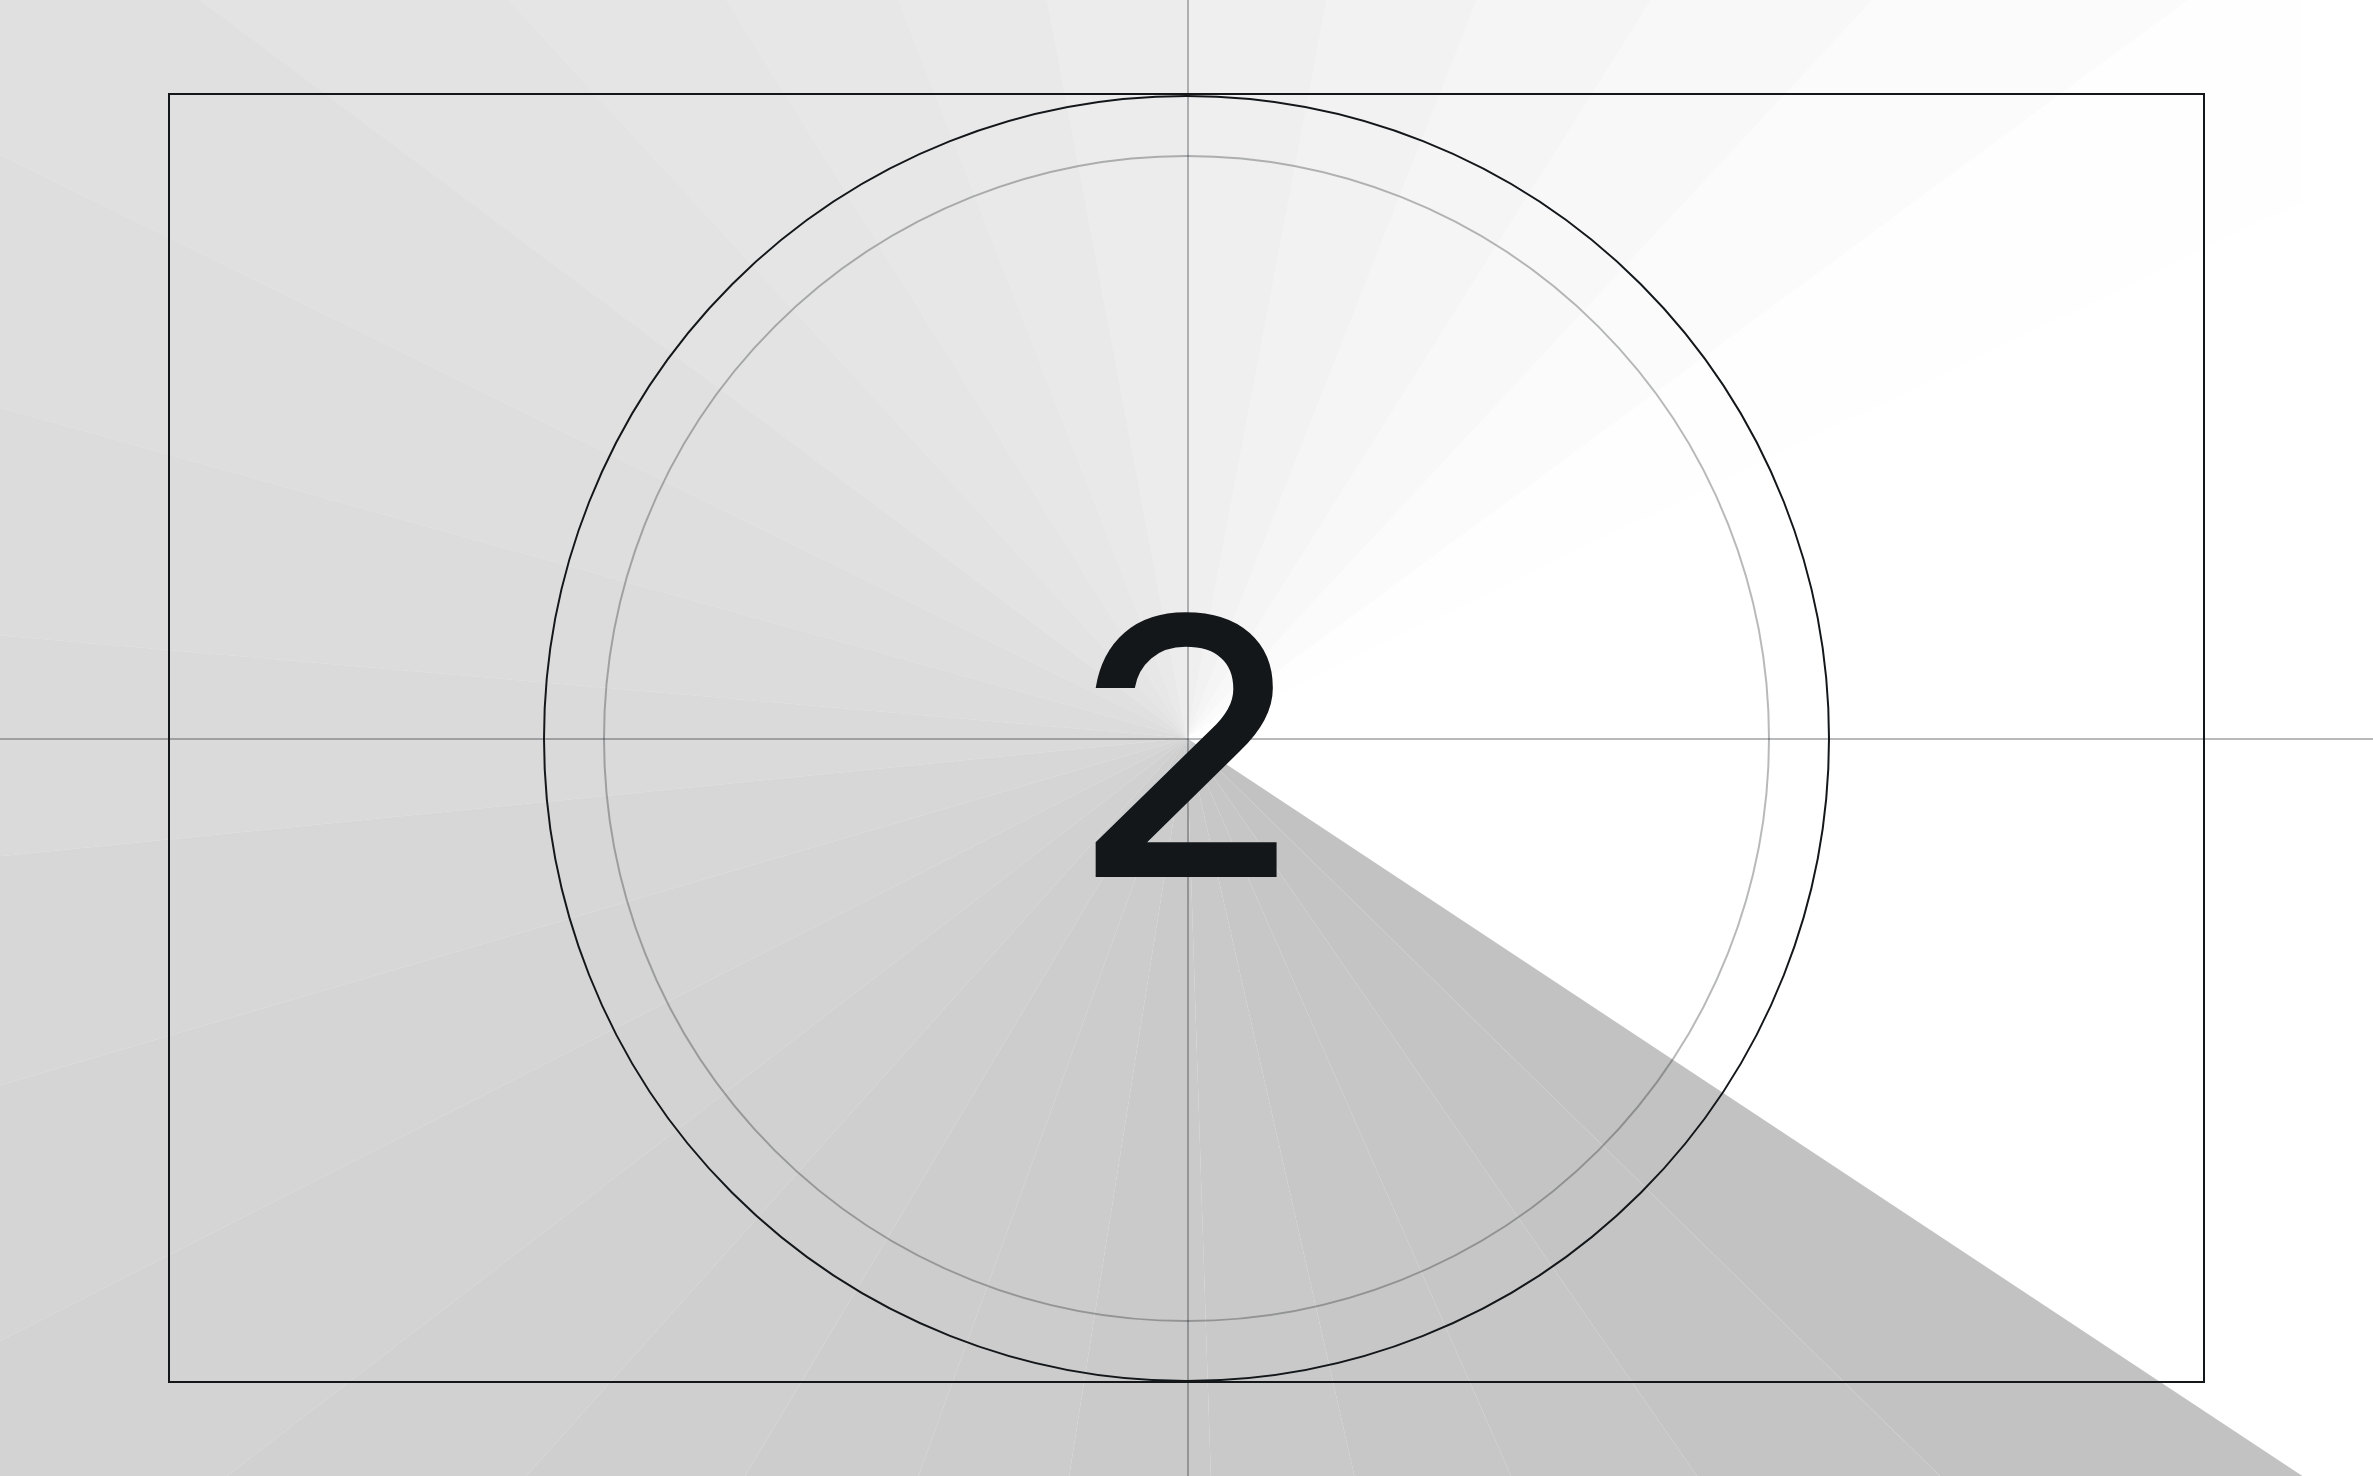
#include "include/core/SkBlurTypes.h"
#include "include/core/SkCanvas.h"
#include "include/core/SkData.h"
#include "include/core/SkFont.h"
#include "include/core/SkFontMgr.h"
#include "include/core/SkImage.h"
#include "include/core/SkMaskFilter.h"
#include "include/core/SkPaint.h"
#include "include/core/SkPathBuilder.h"
#include "include/core/SkTextBlob.h"
#include "include/effects/SkDashPathEffect.h"
#include "include/effects/SkGradientShader.h"
#include "include/utils/SkParsePath.h"

extern sk_sp<SkFontMgr> fontMgr;

void draw(SkCanvas* canvas) {
  SkPaint p;
  p.setAntiAlias(true);
  canvas->clear(SK_ColorWHITE);
  canvas->drawImageRect(SkImages::DeferredFromEncodedData(SkData::MakeFromFileName("images/1.png")), SkRect::MakeLTRB(0, 0, 2302, 1476), SkSamplingOptions());
  p.setColor(SkColorSetARGB(77, 19, 23, 26));
  canvas->drawRect(SkRect::MakeLTRB(0, 738, 2373, 740), p);
  canvas->drawRect(SkRect::MakeLTRB(1187, 0, 1189, 1476), p);
  p.setStyle(SkPaint::kStroke_Style);
  p.setStrokeWidth(2);
  p.setColor(SkColorSetRGB(19, 23, 26));
  canvas->drawRect(SkRect::MakeLTRB(169, 94, 2204, 1382), p);
  canvas->drawCircle(1186.5f, 738.5f, 642.5f, p);
  SkFont font1(fontMgr->matchFamilyStyle("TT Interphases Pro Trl", SkFontStyle(500, SkFontStyle::kNormal_Width, SkFontStyle::kUpright_Slant)), 373);
  font1.setSubpixel(true);
  p.setStyle(SkPaint::kFill_Style);
  canvas->drawString("2", 1080, 877, font1, p);
  p.setStyle(SkPaint::kStroke_Style);
  p.setColor(SkColorSetARGB(77, 19, 23, 26));
  canvas->drawCircle(1186.5f, 738.5f, 582.5f, p);
}
